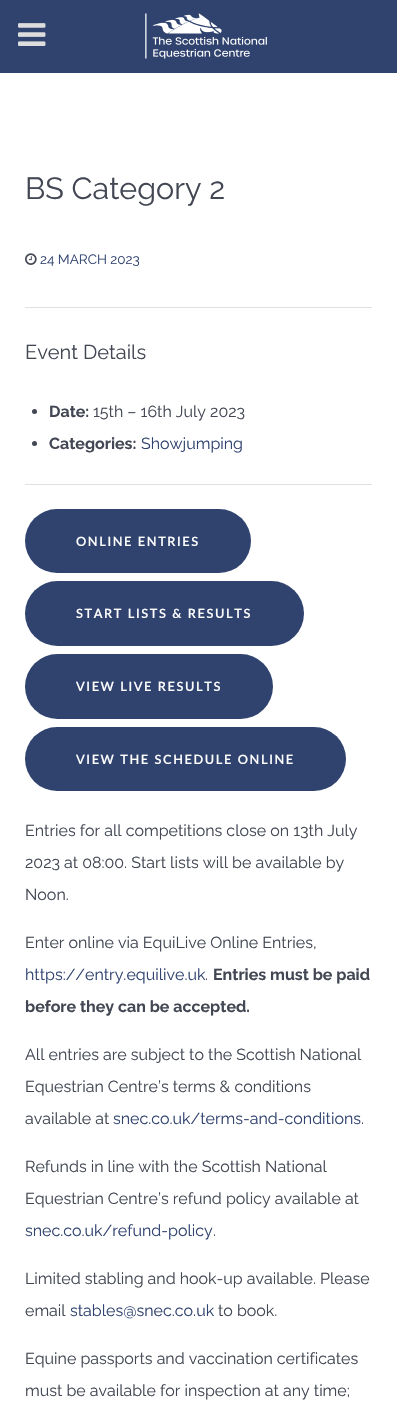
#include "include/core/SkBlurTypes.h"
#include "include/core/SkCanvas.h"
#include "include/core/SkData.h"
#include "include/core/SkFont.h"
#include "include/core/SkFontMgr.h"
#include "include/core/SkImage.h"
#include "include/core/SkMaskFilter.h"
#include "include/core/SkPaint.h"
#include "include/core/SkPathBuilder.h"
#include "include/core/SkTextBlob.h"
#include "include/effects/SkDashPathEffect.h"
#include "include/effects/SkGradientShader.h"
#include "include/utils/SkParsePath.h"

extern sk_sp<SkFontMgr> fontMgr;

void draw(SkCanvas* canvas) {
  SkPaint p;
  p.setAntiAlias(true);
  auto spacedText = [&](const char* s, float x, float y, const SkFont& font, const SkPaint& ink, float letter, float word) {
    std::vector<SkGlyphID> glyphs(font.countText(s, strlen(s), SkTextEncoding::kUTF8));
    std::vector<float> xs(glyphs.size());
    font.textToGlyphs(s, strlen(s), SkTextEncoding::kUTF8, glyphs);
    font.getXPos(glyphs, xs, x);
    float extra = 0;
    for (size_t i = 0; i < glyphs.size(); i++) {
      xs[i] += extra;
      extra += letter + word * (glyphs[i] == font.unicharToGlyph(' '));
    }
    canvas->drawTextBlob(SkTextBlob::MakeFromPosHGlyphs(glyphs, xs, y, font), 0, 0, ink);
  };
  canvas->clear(SK_ColorWHITE);
  p.setColor(SkColorSetRGB(48, 67, 111));
  canvas->drawRect(SkRect::MakeLTRB(0, 0, 397, 73), p);
  canvas->drawImageRect(SkImages::DeferredFromEncodedData(SkData::MakeFromFileName("images/1.png")), SkRect::MakeLTRB(145, 13, 267, 59), SkSamplingOptions());
  canvas->drawImageRect(SkImages::DeferredFromEncodedData(SkData::MakeFromFileName("images/2.png")), SkRect::MakeLTRB(18, 23, 46, 46), SkSamplingOptions());
  canvas->drawImageRect(SkImages::DeferredFromEncodedData(SkData::MakeFromFileName("images/3.png")), SkRect::MakeLTRB(25, 253, 37, 265), SkSamplingOptions());
  p.setColor(SkColorSetRGB(224, 224, 229));
  canvas->drawRect(SkRect::MakeLTRB(25, 307, 372, 308), p);
  p.setColor(SkColorSetRGB(66, 71, 83));
  canvas->drawCircle(34.5f, 411.5f, 2.5f, p);
  canvas->drawCircle(34.5f, 443.5f, 2.5f, p);
  p.setColor(SkColorSetRGB(224, 224, 229));
  canvas->drawRect(SkRect::MakeLTRB(25, 484, 372, 485), p);
  p.setColor(SkColorSetRGB(48, 67, 111));
  canvas->drawRoundRect(SkRect::MakeLTRB(25, 509, 251, 573), 32, 32, p);
  canvas->drawRoundRect(SkRect::MakeLTRB(25, 581, 304, 646), 32.5f, 32.5f, p);
  canvas->drawRoundRect(SkRect::MakeLTRB(25, 654, 273, 719), 32.5f, 32.5f, p);
  canvas->drawRoundRect(SkRect::MakeLTRB(25, 727, 346, 791), 32, 32, p);
  SkFont font1(fontMgr->matchFamilyStyle("Raleway", SkFontStyle::Normal()), 30.5f);
  font1.setSubpixel(true);
  p.setColor(SkColorSetRGB(66, 71, 83));
  canvas->drawString("BS Category 2", 25, 199, font1, p);
  SkFont font2(fontMgr->matchFamilyStyle("Raleway", SkFontStyle::Normal()), 13.5f);
  font2.setSubpixel(true);
  p.setColor(SkColorSetRGB(48, 67, 111));
  canvas->drawString("24 MARCH 2023", 40, 264, font2, p);
  SkFont font3(fontMgr->matchFamilyStyle("Raleway", SkFontStyle::Normal()), 20);
  font3.setSubpixel(true);
  p.setColor(SkColorSetRGB(66, 71, 83));
  canvas->drawString("Event Details", 25, 359, font3, p);
  SkFont font4(fontMgr->matchFamilyStyle("Raleway", SkFontStyle::Bold()), 16);
  font4.setSubpixel(true);
  canvas->drawString("Date:", 49, 417, font4, p);
  SkFont font5(fontMgr->matchFamilyStyle("Raleway", SkFontStyle::Normal()), 16);
  font5.setSubpixel(true);
  canvas->drawString("15th – 16th July 2023", 93, 417, font5, p);
  canvas->drawString("Categories:", 49, 449, font4, p);
  p.setColor(SkColorSetRGB(48, 67, 111));
  canvas->drawString("Showjumping", 141, 449, font5, p);
  SkFont font6(fontMgr->matchFamilyStyle("Lato", SkFontStyle(600, SkFontStyle::kNormal_Width, SkFontStyle::kUpright_Slant)), 12.75f);
  font6.setSubpixel(true);
  p.setColor(SK_ColorWHITE);
  spacedText("ONLINE ENTRIES", 76, 546, font6, p, 1.6f, 0);
  spacedText("START LISTS & RESULTS", 76, 618, font6, p, 1.6f, 0);
  spacedText("VIEW LIVE RESULTS", 76, 691, font6, p, 1.6f, 0);
  spacedText("VIEW THE SCHEDULE ONLINE", 76, 764, font6, p, 1.6f, 0);
  p.setColor(SkColorSetRGB(66, 71, 83));
  canvas->drawString("Entries for all competitions close on 13th July", 25, 836, font5, p);
  canvas->drawString("2023 at 08:00. Start lists will be available by", 25, 868, font5, p);
  canvas->drawString("Noon.", 25, 900, font5, p);
  canvas->drawString("Enter online via EquiLive Online Entries,", 25, 948, font5, p);
  p.setColor(SkColorSetRGB(48, 67, 111));
  canvas->drawString("https://entry.equilive.uk", 25, 980, font5, p);
  p.setColor(SkColorSetRGB(66, 71, 83));
  canvas->drawString(".", 205, 980, font5, p);
  canvas->drawString("Entries must be paid", 213, 980, font4, p);
  canvas->drawString("before they can be accepted.", 25, 1012, font4, p);
  canvas->drawString("All entries are subject to the Scottish National", 25, 1060, font5, p);
  canvas->drawString("Equestrian Centre’s terms & conditions", 25, 1092, font5, p);
  canvas->drawString("available at", 25, 1124, font5, p);
  p.setColor(SkColorSetRGB(48, 67, 111));
  canvas->drawString("snec.co.uk/terms-and-conditions", 113, 1124, font5, p);
  p.setColor(SkColorSetRGB(66, 71, 83));
  canvas->drawString(".", 361, 1124, font5, p);
  canvas->drawString("Refunds in line with the Scottish National", 25, 1172, font5, p);
  canvas->drawString("Equestrian Centre’s refund policy available at", 25, 1204, font5, p);
  p.setColor(SkColorSetRGB(48, 67, 111));
  canvas->drawString("snec.co.uk/refund-policy", 25, 1236, font5, p);
  p.setColor(SkColorSetRGB(66, 71, 83));
  canvas->drawString(".", 213, 1236, font5, p);
  canvas->drawString("Limited stabling and hook-up available. Please", 25, 1284, font5, p);
  canvas->drawString("email", 25, 1316, font5, p);
  p.setColor(SkColorSetRGB(48, 67, 111));
  canvas->drawString("stables@snec.co.uk", 70, 1316, font5, p);
  p.setColor(SkColorSetRGB(66, 71, 83));
  canvas->drawString("to book.", 218, 1316, font5, p);
  canvas->drawString("Equine passports and vaccination certificates", 25, 1364, font5, p);
  canvas->drawString("must be available for inspection at any time;", 25, 1396, font5, p);
}
